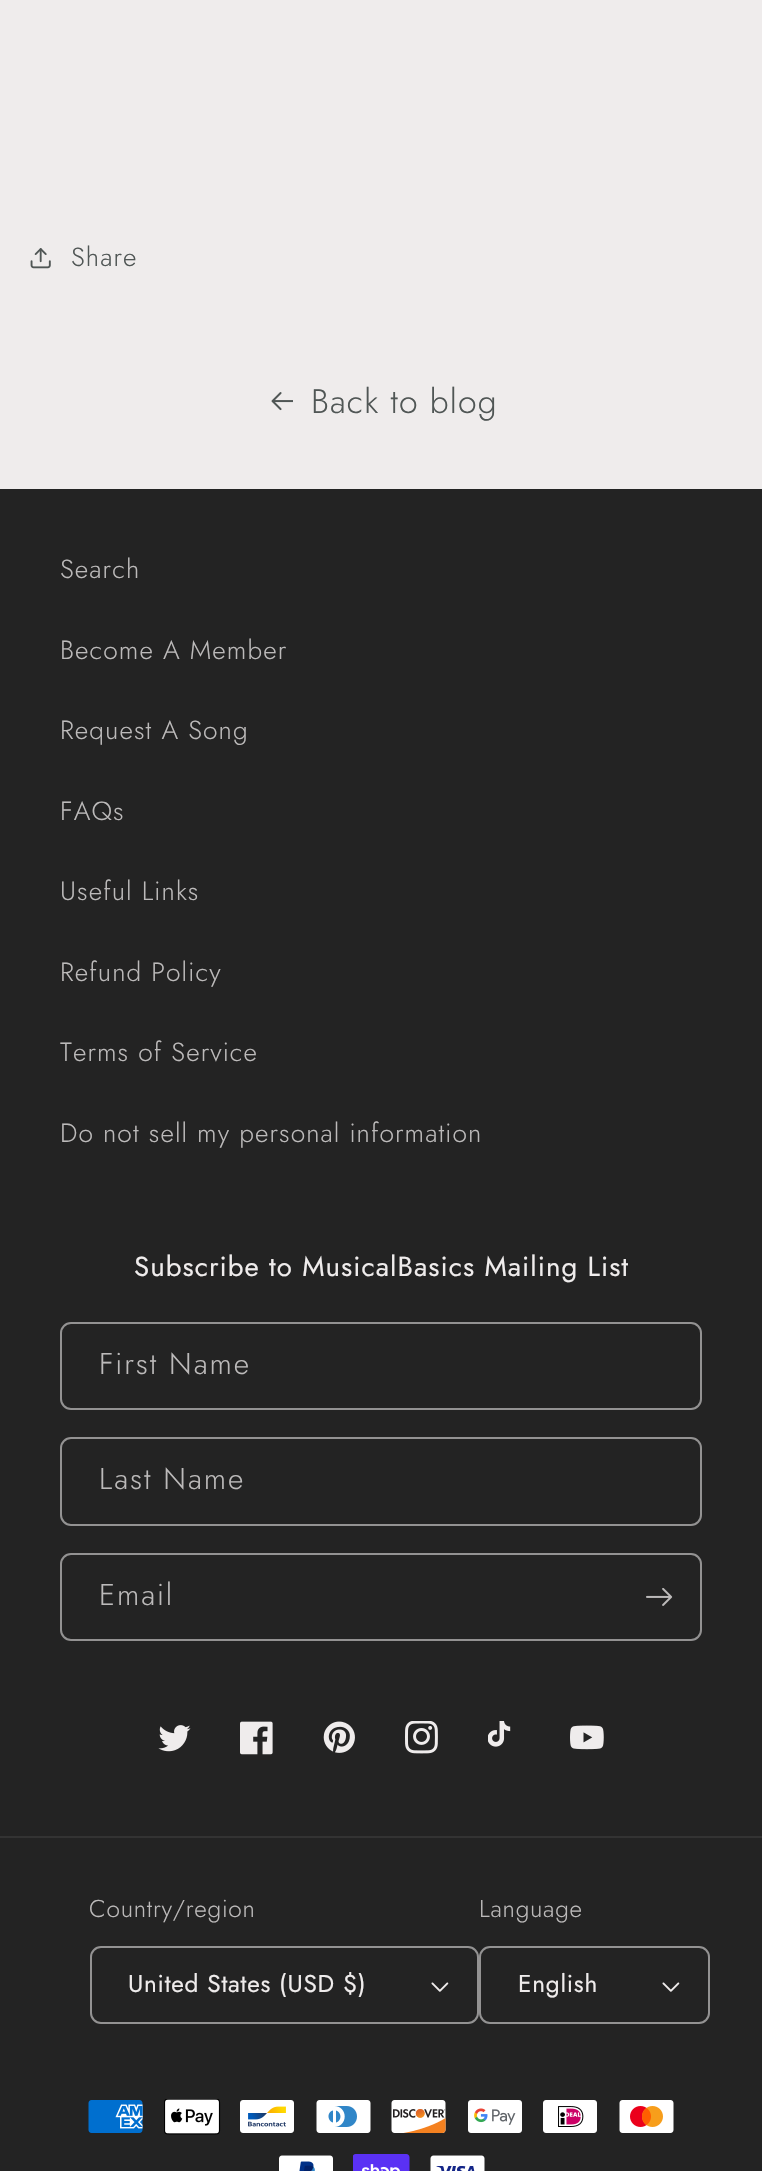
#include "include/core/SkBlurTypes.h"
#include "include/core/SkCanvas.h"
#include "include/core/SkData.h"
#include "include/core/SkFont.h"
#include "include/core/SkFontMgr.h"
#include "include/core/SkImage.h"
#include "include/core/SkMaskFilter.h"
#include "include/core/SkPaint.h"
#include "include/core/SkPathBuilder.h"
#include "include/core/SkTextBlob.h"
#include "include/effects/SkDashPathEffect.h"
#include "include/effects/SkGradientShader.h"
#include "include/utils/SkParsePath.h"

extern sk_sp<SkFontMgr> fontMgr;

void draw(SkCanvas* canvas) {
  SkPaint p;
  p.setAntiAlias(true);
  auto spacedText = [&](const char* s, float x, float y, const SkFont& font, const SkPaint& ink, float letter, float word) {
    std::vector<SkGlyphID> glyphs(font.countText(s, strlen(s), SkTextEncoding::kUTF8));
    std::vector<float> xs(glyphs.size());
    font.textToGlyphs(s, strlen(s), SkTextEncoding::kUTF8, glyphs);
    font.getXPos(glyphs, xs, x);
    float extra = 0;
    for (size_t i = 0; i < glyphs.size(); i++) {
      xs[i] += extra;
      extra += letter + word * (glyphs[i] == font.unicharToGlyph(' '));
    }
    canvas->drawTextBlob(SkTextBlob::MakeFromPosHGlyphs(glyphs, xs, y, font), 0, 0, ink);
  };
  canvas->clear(SkColorSetRGB(239, 236, 236));
  canvas->drawImageRect(SkImages::DeferredFromEncodedData(SkData::MakeFromFileName("images/1.png")), SkRect::MakeLTRB(30, 248, 51, 269), SkSamplingOptions());
  canvas->drawImageRect(SkImages::DeferredFromEncodedData(SkData::MakeFromFileName("images/2.png")), SkRect::MakeLTRB(271, 392, 293, 411), SkSamplingOptions());
  p.setColor(SkColorSetRGB(35, 35, 35));
  canvas->drawRect(SkRect::MakeLTRB(0, 489, 762, 2171), p);
  p.setStyle(SkPaint::kStroke_Style);
  p.setStrokeWidth(2);
  p.setColor(SkColorSetRGB(147, 146, 146));
  canvas->drawRoundRect(SkRect::MakeLTRB(61, 1323, 701, 1409), 10, 10, p);
  canvas->drawRoundRect(SkRect::MakeLTRB(61, 1438, 701, 1525), 10, 10, p);
  canvas->drawRoundRect(SkRect::MakeLTRB(61, 1554, 701, 1640), 10, 10, p);
  canvas->drawImageRect(SkImages::DeferredFromEncodedData(SkData::MakeFromFileName("images/3.png")), SkRect::MakeLTRB(646, 1588, 673, 1606), SkSamplingOptions());
  canvas->drawImageRect(SkImages::DeferredFromEncodedData(SkData::MakeFromFileName("images/4.png")), SkRect::MakeLTRB(158, 1725, 191, 1752), SkSamplingOptions());
  canvas->drawImageRect(SkImages::DeferredFromEncodedData(SkData::MakeFromFileName("images/5.png")), SkRect::MakeLTRB(240, 1721, 273, 1755), SkSamplingOptions());
  canvas->drawImageRect(SkImages::DeferredFromEncodedData(SkData::MakeFromFileName("images/6.png")), SkRect::MakeLTRB(323, 1721, 355, 1753), SkSamplingOptions());
  canvas->drawImageRect(SkImages::DeferredFromEncodedData(SkData::MakeFromFileName("images/7.png")), SkRect::MakeLTRB(405, 1721, 438, 1754), SkSamplingOptions());
  canvas->drawImageRect(SkImages::DeferredFromEncodedData(SkData::MakeFromFileName("images/8.png")), SkRect::MakeLTRB(488, 1721, 511, 1747), SkSamplingOptions());
  canvas->drawImageRect(SkImages::DeferredFromEncodedData(SkData::MakeFromFileName("images/9.png")), SkRect::MakeLTRB(570, 1725, 604, 1750), SkSamplingOptions());
  p.setStyle(SkPaint::kFill_Style);
  p.setColor(SkColorSetRGB(51, 51, 51));
  canvas->drawRect(SkRect::MakeLTRB(0, 1836, 762, 1838), p);
  canvas->drawImageRect(SkImages::DeferredFromEncodedData(SkData::MakeFromFileName("images/10.png")), SkRect::MakeLTRB(431, 1982, 449, 1992), SkSamplingOptions());
  p.setStyle(SkPaint::kStroke_Style);
  p.setColor(SkColorSetRGB(147, 146, 146));
  canvas->drawRoundRect(SkRect::MakeLTRB(91, 1947, 478, 2023), 10, 10, p);
  canvas->drawImageRect(SkImages::DeferredFromEncodedData(SkData::MakeFromFileName("images/10.png")), SkRect::MakeLTRB(662, 1982, 680, 1992), SkSamplingOptions());
  canvas->drawRoundRect(SkRect::MakeLTRB(480, 1947, 709, 2023), 10, 10, p);
  canvas->drawImageRect(SkImages::DeferredFromEncodedData(SkData::MakeFromFileName("images/11.png")), SkRect::MakeLTRB(88, 2100, 143, 2133), SkSamplingOptions());
  canvas->drawImageRect(SkImages::DeferredFromEncodedData(SkData::MakeFromFileName("images/12.png")), SkRect::MakeLTRB(164, 2099, 221, 2135), SkSamplingOptions());
  canvas->drawImageRect(SkImages::DeferredFromEncodedData(SkData::MakeFromFileName("images/13.png")), SkRect::MakeLTRB(240, 2100, 294, 2133), SkSamplingOptions());
  canvas->drawImageRect(SkImages::DeferredFromEncodedData(SkData::MakeFromFileName("images/14.png")), SkRect::MakeLTRB(316, 2100, 371, 2133), SkSamplingOptions());
  canvas->drawImageRect(SkImages::DeferredFromEncodedData(SkData::MakeFromFileName("images/15.png")), SkRect::MakeLTRB(391, 2100, 446, 2133), SkSamplingOptions());
  canvas->drawImageRect(SkImages::DeferredFromEncodedData(SkData::MakeFromFileName("images/16.png")), SkRect::MakeLTRB(468, 2100, 522, 2133), SkSamplingOptions());
  canvas->drawImageRect(SkImages::DeferredFromEncodedData(SkData::MakeFromFileName("images/17.png")), SkRect::MakeLTRB(543, 2100, 597, 2133), SkSamplingOptions());
  canvas->drawImageRect(SkImages::DeferredFromEncodedData(SkData::MakeFromFileName("images/18.png")), SkRect::MakeLTRB(619, 2100, 674, 2133), SkSamplingOptions());
  canvas->drawImageRect(SkImages::DeferredFromEncodedData(SkData::MakeFromFileName("images/19.png")), SkRect::MakeLTRB(279, 2155, 333, 2171), SkSamplingOptions());
  canvas->drawImageRect(SkImages::DeferredFromEncodedData(SkData::MakeFromFileName("images/20.png")), SkRect::MakeLTRB(353, 2154, 410, 2171), SkSamplingOptions());
  canvas->drawImageRect(SkImages::DeferredFromEncodedData(SkData::MakeFromFileName("images/21.png")), SkRect::MakeLTRB(430, 2155, 485, 2171), SkSamplingOptions());
  SkFont font1(fontMgr->matchFamilyStyle("Jost", SkFontStyle(300, SkFontStyle::kNormal_Width, SkFontStyle::kUpright_Slant)), 26.25f);
  font1.setSubpixel(true);
  p.setStyle(SkPaint::kFill_Style);
  p.setColor(SkColorSetRGB(80, 86, 85));
  spacedText("Share", 71, 266, font1, p, 1.1f, 0);
  SkFont font2(fontMgr->matchFamilyStyle("Jost", SkFontStyle(300, SkFontStyle::kNormal_Width, SkFontStyle::kUpright_Slant)), 33.75f);
  font2.setSubpixel(true);
  spacedText("Back to blog", 311, 413, font2, p, 1.1f, 0);
  p.setColor(SkColorSetRGB(188, 186, 186));
  spacedText("Search", 60, 578, font1, p, 1.1f, 0);
  spacedText("Become A Member", 60, 659, font1, p, 1.1f, 0);
  spacedText("Request A Song", 60, 739, font1, p, 1.1f, 0);
  spacedText("FAQs", 60, 820, font1, p, 1.1f, 0);
  spacedText("Useful Links", 60, 900, font1, p, 1.1f, 0);
  spacedText("Refund Policy", 60, 981, font1, p, 1.1f, 0);
  spacedText("Terms of Service", 60, 1061, font1, p, 1.1f, 0);
  spacedText("Do not sell my personal information", 60, 1142, font1, p, 1.1f, 0);
  SkFont font3(fontMgr->matchFamilyStyle("Jost", SkFontStyle::Normal()), 27.6f);
  font3.setSubpixel(true);
  p.setColor(SkColorSetRGB(239, 236, 236));
  spacedText("Subscribe to MusicalBasics Mailing List", 134, 1276, font3, p, 1.05f, 0);
  SkFont font4(fontMgr->matchFamilyStyle("Jost", SkFontStyle(300, SkFontStyle::kNormal_Width, SkFontStyle::kUpright_Slant)), 30);
  font4.setSubpixel(true);
  p.setColor(SkColorSetRGB(188, 186, 186));
  spacedText("First Name", 99, 1374, font4, p, 1.9f, 0);
  spacedText("Last Name", 99, 1489, font4, p, 1.9f, 0);
  spacedText("Email", 99, 1605, font4, p, 1.9f, 0);
  SkFont font5(fontMgr->matchFamilyStyle("Jost", SkFontStyle(300, SkFontStyle::kNormal_Width, SkFontStyle::kUpright_Slant)), 24.4f);
  font5.setSubpixel(true);
  spacedText("Country/region", 89, 1917, font5, p, 0.75f, 0);
  SkFont font6(fontMgr->matchFamilyStyle("Jost", SkFontStyle::Normal()), 24.4f);
  font6.setSubpixel(true);
  p.setColor(SkColorSetRGB(239, 236, 236));
  spacedText("United States (USD $)", 128, 1992, font6, p, 0.75f, 0);
  p.setColor(SkColorSetRGB(188, 186, 186));
  spacedText("Language", 479, 1917, font5, p, 0.75f, 0);
  p.setColor(SkColorSetRGB(239, 236, 236));
  spacedText("English", 518, 1992, font6, p, 0.75f, 0);
}
